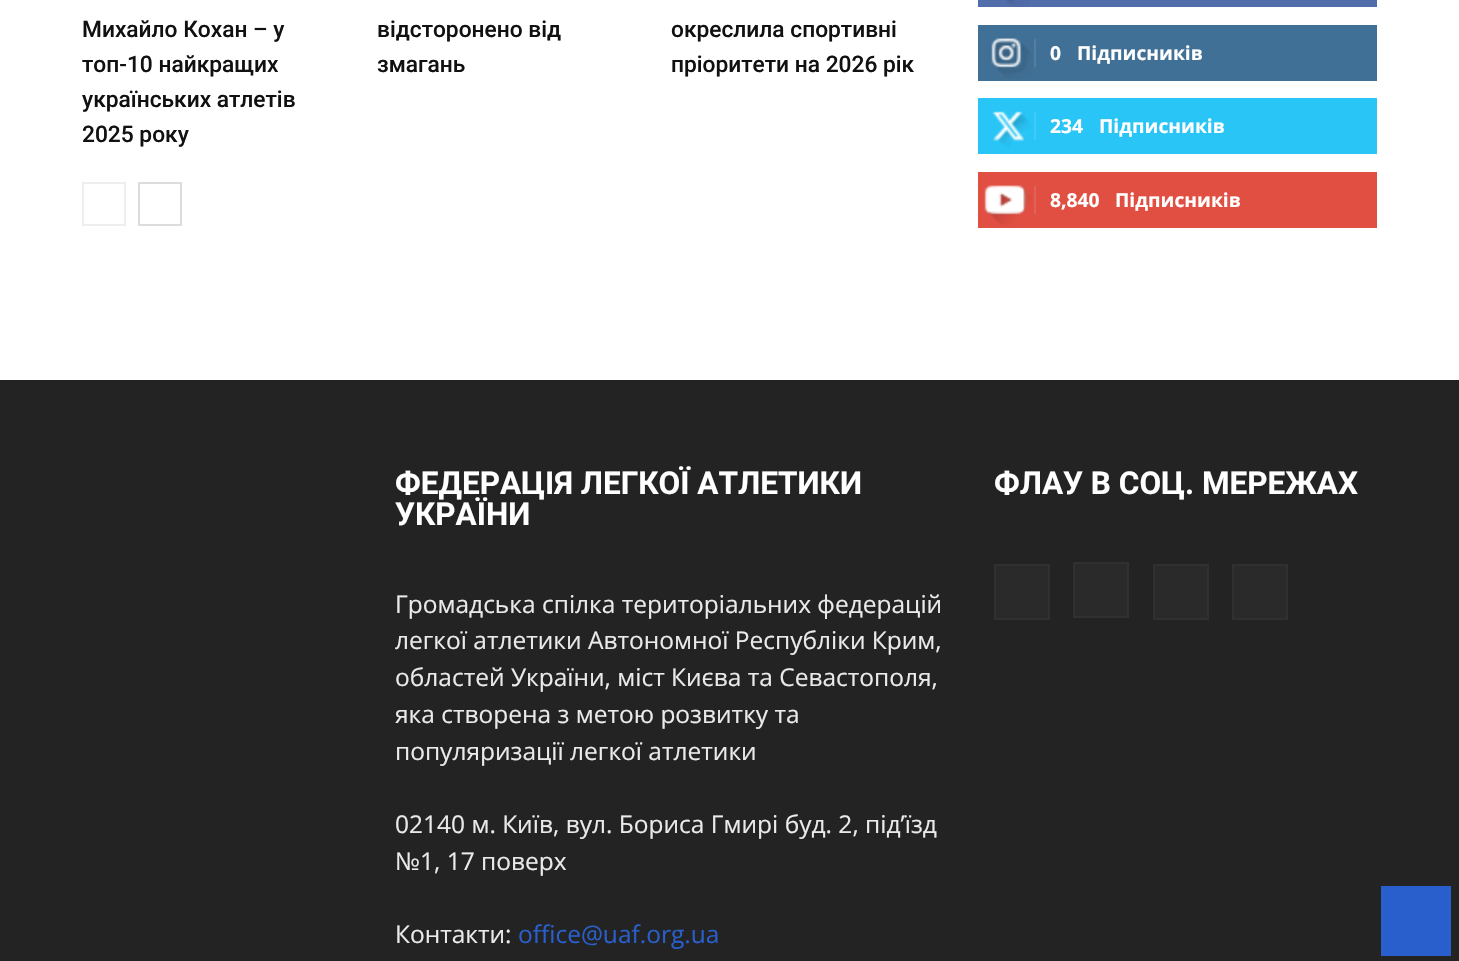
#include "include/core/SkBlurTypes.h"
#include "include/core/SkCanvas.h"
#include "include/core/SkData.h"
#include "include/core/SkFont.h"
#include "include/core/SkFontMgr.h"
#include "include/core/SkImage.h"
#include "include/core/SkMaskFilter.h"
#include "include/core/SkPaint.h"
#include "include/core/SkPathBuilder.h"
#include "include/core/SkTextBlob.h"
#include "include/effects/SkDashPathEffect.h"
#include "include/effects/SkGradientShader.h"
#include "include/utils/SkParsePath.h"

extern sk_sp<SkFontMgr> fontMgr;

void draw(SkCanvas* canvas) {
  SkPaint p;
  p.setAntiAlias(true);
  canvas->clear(SK_ColorWHITE);
  p.setStyle(SkPaint::kStroke_Style);
  p.setStrokeWidth(2);
  p.setColor(SkColorSetRGB(238, 238, 238));
  canvas->drawRect(SkRect::MakeLTRB(83, 183, 125, 225), p);
  p.setColor(SkColorSetRGB(220, 220, 220));
  canvas->drawRect(SkRect::MakeLTRB(139, 183, 181, 225), p);
  p.setStyle(SkPaint::kFill_Style);
  p.setColor(SkColorSetRGB(81, 110, 171));
  canvas->drawRect(SkRect::MakeLTRB(978, 0, 1377, 7), p);
  canvas->drawImageRect(SkImages::DeferredFromEncodedData(SkData::MakeFromFileName("images/1.png")), SkRect::MakeLTRB(1006, 0, 1030, 7), SkSamplingOptions());
  p.setColor(SkColorSetRGB(65, 112, 150));
  canvas->drawRect(SkRect::MakeLTRB(978, 25, 1377, 81), p);
  canvas->drawImageRect(SkImages::DeferredFromEncodedData(SkData::MakeFromFileName("images/2.png")), SkRect::MakeLTRB(991, 38, 1033, 79), SkSamplingOptions());
  p.setColor(SkColorSetRGB(84, 126, 161));
  canvas->drawRect(SkRect::MakeLTRB(1034, 39, 1036, 67), p);
  p.setColor(SkColorSetRGB(41, 197, 246));
  canvas->drawRect(SkRect::MakeLTRB(978, 98, 1377, 154), p);
  canvas->drawImageRect(SkImages::DeferredFromEncodedData(SkData::MakeFromFileName("images/3.png")), SkRect::MakeLTRB(992, 111, 1031, 148), SkSamplingOptions());
  p.setColor(SkColorSetRGB(62, 203, 247));
  canvas->drawRect(SkRect::MakeLTRB(1034, 112, 1036, 140), p);
  p.setColor(SkColorSetRGB(225, 78, 66));
  canvas->drawRect(SkRect::MakeLTRB(978, 172, 1377, 228), p);
  canvas->drawImageRect(SkImages::DeferredFromEncodedData(SkData::MakeFromFileName("images/4.png")), SkRect::MakeLTRB(984, 185, 1032, 226), SkSamplingOptions());
  p.setColor(SkColorSetRGB(228, 96, 85));
  canvas->drawRect(SkRect::MakeLTRB(1034, 186, 1036, 214), p);
  p.setColor(SkColorSetRGB(35, 35, 35));
  canvas->drawRect(SkRect::MakeLTRB(0, 380, 1459, 961), p);
  p.setColor(SkColorSetRGB(42, 42, 42));
  canvas->drawRect(SkRect::MakeLTRB(995, 565, 1049, 619), p);
  p.setStyle(SkPaint::kStroke_Style);
  p.setColor(SkColorSetRGB(48, 48, 48));
  canvas->drawRect(SkRect::MakeLTRB(995, 565, 1049, 619), p);
  p.setStyle(SkPaint::kFill_Style);
  p.setColor(SkColorSetRGB(42, 42, 42));
  canvas->drawRect(SkRect::MakeLTRB(1074, 563, 1128, 617), p);
  p.setStyle(SkPaint::kStroke_Style);
  p.setColor(SkColorSetRGB(48, 48, 48));
  canvas->drawRect(SkRect::MakeLTRB(1074, 563, 1128, 617), p);
  p.setStyle(SkPaint::kFill_Style);
  p.setColor(SkColorSetRGB(42, 42, 42));
  canvas->drawRect(SkRect::MakeLTRB(1154, 565, 1208, 619), p);
  p.setStyle(SkPaint::kStroke_Style);
  p.setColor(SkColorSetRGB(48, 48, 48));
  canvas->drawRect(SkRect::MakeLTRB(1154, 565, 1208, 619), p);
  p.setStyle(SkPaint::kFill_Style);
  p.setColor(SkColorSetRGB(42, 42, 42));
  canvas->drawRect(SkRect::MakeLTRB(1233, 565, 1287, 619), p);
  p.setStyle(SkPaint::kStroke_Style);
  p.setColor(SkColorSetRGB(48, 48, 48));
  canvas->drawRect(SkRect::MakeLTRB(1233, 565, 1287, 619), p);
  p.setStyle(SkPaint::kFill_Style);
  p.setColor(SkColorSetRGB(41, 95, 204));
  canvas->drawRect(SkRect::MakeLTRB(1381, 886, 1451, 956), p);
  SkFont font1(fontMgr->matchFamilyStyle("Roboto", SkFontStyle(500, SkFontStyle::kNormal_Width, SkFontStyle::kUpright_Slant)), 22.75f);
  font1.setSubpixel(true);
  p.setColor(SkColorSetRGB(17, 17, 17));
  canvas->drawString("Михайло Кохан – у", 82, 37, font1, p);
  canvas->drawString("топ-10 найкращих", 82, 72, font1, p);
  canvas->drawString("українських атлетів", 82, 107, font1, p);
  canvas->drawString("2025 року", 82, 142, font1, p);
  canvas->drawString("відсторонено від", 377, 37, font1, p);
  canvas->drawString("змагань", 377, 72, font1, p);
  canvas->drawString("окреслила спортивні", 671, 37, font1, p);
  canvas->drawString("пріоритети на 2026 рік", 671, 72, font1, p);
  SkFont font2(fontMgr->matchFamilyStyle("Open Sans", SkFontStyle::Bold()), 19.25f);
  font2.setSubpixel(true);
  p.setColor(SK_ColorWHITE);
  canvas->drawString("0", 1050, 60, font2, p);
  canvas->drawString("Підписників", 1077, 60, font2, p);
  canvas->drawString("234", 1050, 133, font2, p);
  canvas->drawString("Підписників", 1099, 133, font2, p);
  canvas->drawString("8,840", 1050, 207, font2, p);
  canvas->drawString("Підписників", 1115, 207, font2, p);
  SkFont font3(fontMgr->matchFamilyStyle("Roboto", SkFontStyle::Bold()), 31.5f);
  font3.setSubpixel(true);
  canvas->drawString("ФЕДЕРАЦІЯ ЛЕГКОЇ АТЛЕТИКИ", 395, 494, font3, p);
  canvas->drawString("УКРАЇНИ", 395, 525, font3, p);
  SkFont font4(fontMgr->matchFamilyStyle("Open Sans", SkFontStyle::Normal()), 24.5f);
  font4.setSubpixel(true);
  p.setColor(SkColorSetRGB(234, 234, 234));
  canvas->drawString("Громадська спілка територіальних федерацій", 395, 613, font4, p);
  canvas->drawString("легкої атлетики Автономної Республіки Крим,", 395, 649, font4, p);
  canvas->drawString("областей України, міст Києва та Севастополя,", 395, 686, font4, p);
  canvas->drawString("яка створена з метою розвитку та", 395, 723, font4, p);
  canvas->drawString("популяризації легкої атлетики", 395, 760, font4, p);
  canvas->drawString("02140 м. Київ, вул. Бориса Гмирі буд. 2, під’їзд", 395, 833, font4, p);
  canvas->drawString("№1, 17 поверх", 395, 870, font4, p);
  canvas->drawString("Контакти:", 395, 943, font4, p);
  p.setColor(SkColorSetRGB(41, 95, 204));
  canvas->drawString("office@uaf.org.ua", 518, 943, font4, p);
  p.setColor(SK_ColorWHITE);
  canvas->drawString("ФЛАУ В СОЦ. МЕРЕЖАХ", 994, 494, font3, p);
}
